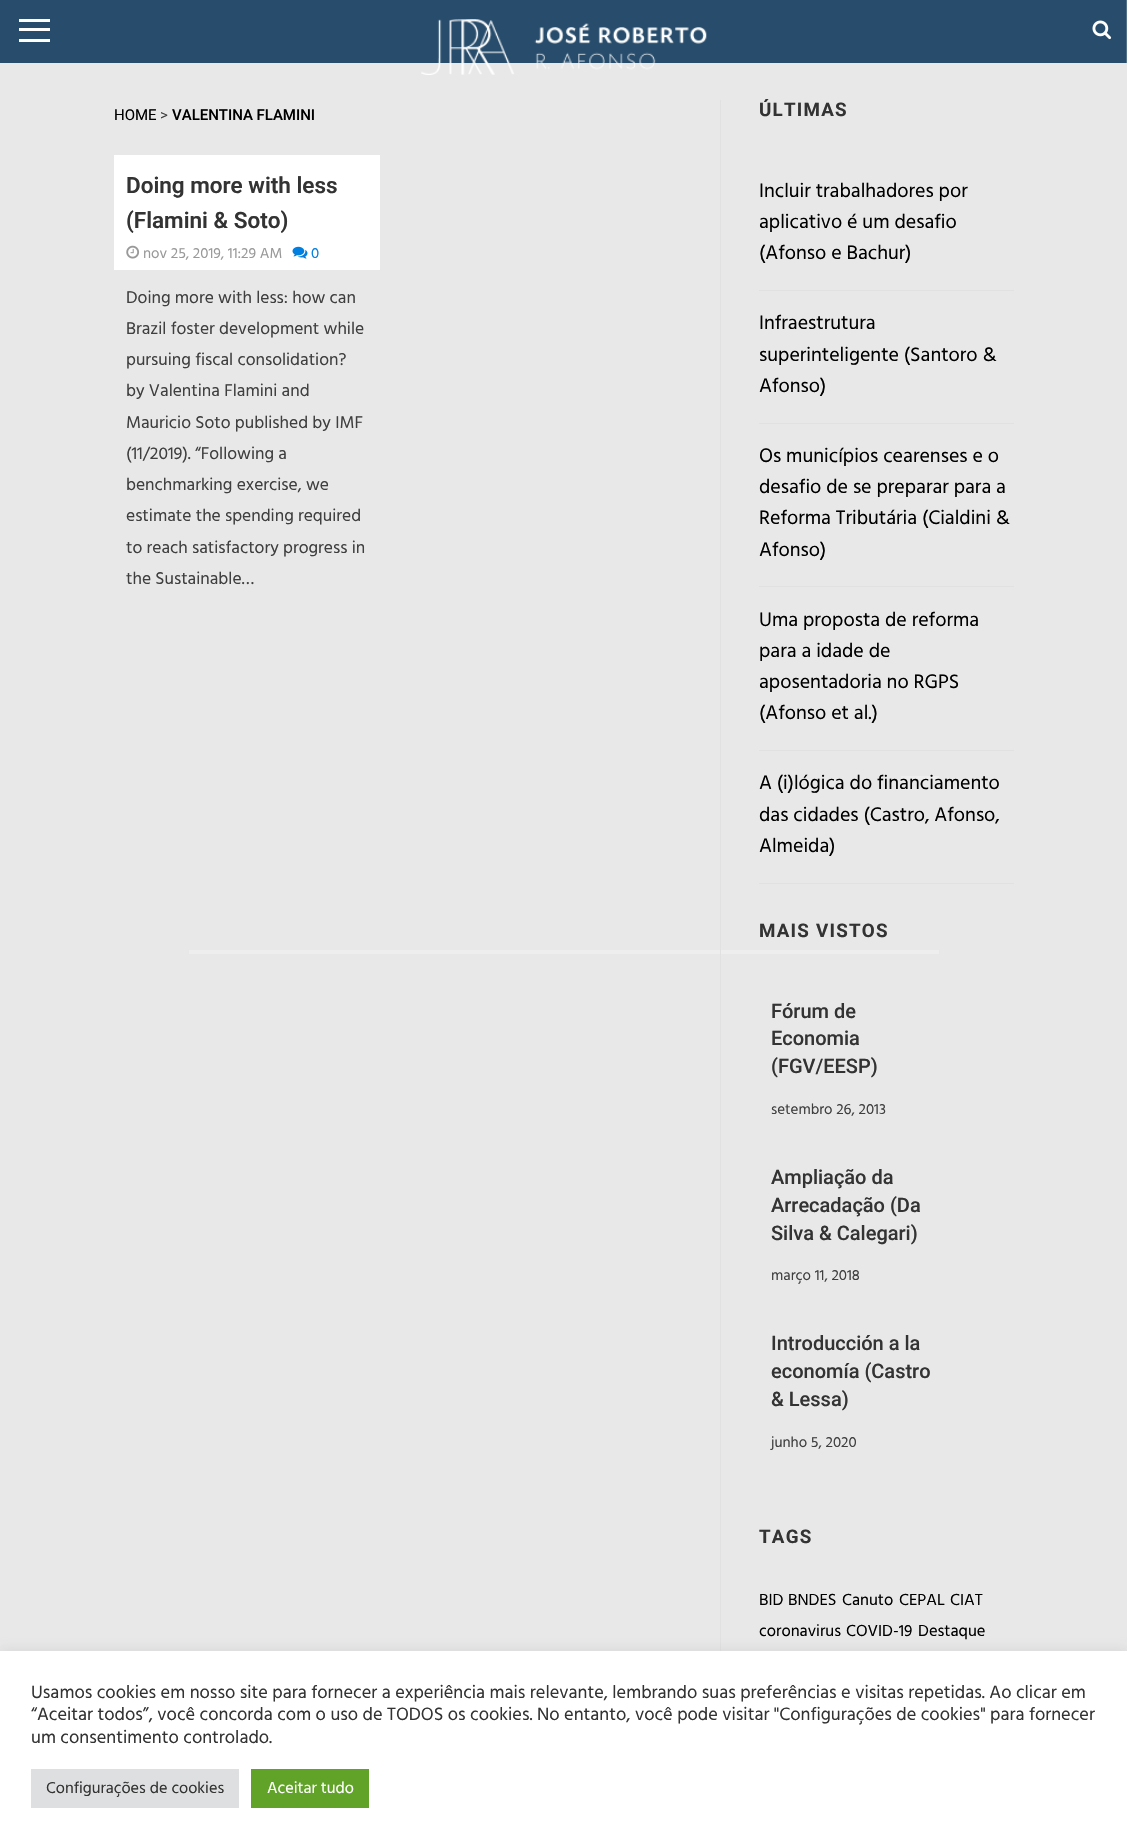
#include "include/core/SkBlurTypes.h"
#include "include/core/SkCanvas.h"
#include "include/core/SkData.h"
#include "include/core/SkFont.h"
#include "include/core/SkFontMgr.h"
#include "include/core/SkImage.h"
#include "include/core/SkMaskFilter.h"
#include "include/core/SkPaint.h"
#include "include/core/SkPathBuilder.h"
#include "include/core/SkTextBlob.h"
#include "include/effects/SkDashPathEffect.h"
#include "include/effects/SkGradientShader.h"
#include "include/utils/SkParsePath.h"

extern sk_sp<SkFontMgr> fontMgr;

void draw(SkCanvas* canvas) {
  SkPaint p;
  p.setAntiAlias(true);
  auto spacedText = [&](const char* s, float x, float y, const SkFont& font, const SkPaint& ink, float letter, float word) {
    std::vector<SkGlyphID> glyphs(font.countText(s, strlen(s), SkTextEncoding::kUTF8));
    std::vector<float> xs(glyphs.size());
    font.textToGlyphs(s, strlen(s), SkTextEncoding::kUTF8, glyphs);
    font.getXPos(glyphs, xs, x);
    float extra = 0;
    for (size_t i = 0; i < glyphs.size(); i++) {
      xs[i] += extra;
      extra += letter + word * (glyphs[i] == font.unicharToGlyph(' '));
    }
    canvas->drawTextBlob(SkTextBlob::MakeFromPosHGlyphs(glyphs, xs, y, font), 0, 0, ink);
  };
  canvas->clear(SkColorSetRGB(232, 232, 232));
  p.setColor(SkColorSetRGB(40, 77, 108));
  canvas->drawRect(SkRect::MakeLTRB(0, 0, 1126, 63), p);
  p.setColor(SK_ColorWHITE);
  canvas->drawRect(SkRect::MakeLTRB(19, 28, 50, 31), p);
  canvas->drawRect(SkRect::MakeLTRB(19, 19, 50, 22), p);
  canvas->drawRect(SkRect::MakeLTRB(19, 39, 50, 42), p);
  canvas->drawImageRect(SkImages::DeferredFromEncodedData(SkData::MakeFromFileName("images/1.png")), SkRect::MakeLTRB(421, 19, 707, 75), SkSamplingOptions());
  p.setColor(SkColorSetRGB(83, 113, 137));
  canvas->drawRect(SkRect::MakeLTRB(1126, 0, 1127, 63), p);
  canvas->drawImageRect(SkImages::DeferredFromEncodedData(SkData::MakeFromFileName("images/2.png")), SkRect::MakeLTRB(1092, 20, 1112, 40), SkSamplingOptions());
  p.setColor(SK_ColorWHITE);
  canvas->drawRect(SkRect::MakeLTRB(114, 155, 380, 270), p);
  canvas->drawImageRect(SkImages::DeferredFromEncodedData(SkData::MakeFromFileName("images/3.png")), SkRect::MakeLTRB(126, 245, 140, 259), SkSamplingOptions());
  canvas->drawImageRect(SkImages::DeferredFromEncodedData(SkData::MakeFromFileName("images/4.png")), SkRect::MakeLTRB(292, 246, 308, 259), SkSamplingOptions());
  p.setColor(SkColorSetRGB(238, 238, 238));
  canvas->drawRect(SkRect::MakeLTRB(189, 950, 939, 954), p);
  p.setColor(SkColorSetRGB(225, 225, 225));
  canvas->drawRect(SkRect::MakeLTRB(720, 100, 721, 1651), p);
  canvas->drawRect(SkRect::MakeLTRB(759, 290, 1014, 291), p);
  canvas->drawRect(SkRect::MakeLTRB(759, 423, 1014, 424), p);
  canvas->drawRect(SkRect::MakeLTRB(759, 586, 1014, 587), p);
  canvas->drawRect(SkRect::MakeLTRB(759, 750, 1014, 751), p);
  canvas->drawRect(SkRect::MakeLTRB(759, 883, 1014, 884), p);
  p.setColor(SkColorSetRGB(238, 238, 238));
  canvas->drawRect(SkRect::MakeLTRB(901, 776, 939, 779), p);
  p.setColor(SkColorSetARGB(77, 172, 171, 171));
  p.setMaskFilter(SkMaskFilter::MakeBlur(kNormal_SkBlurStyle, 6));
  canvas->drawRect(SkRect::MakeLTRB(0, 1650, 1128, 1844), p);
  p.setMaskFilter(nullptr);
  p.setColor(SK_ColorWHITE);
  canvas->drawRect(SkRect::MakeLTRB(0, 1651, 1127, 1845), p);
  p.setColor(SkColorSetRGB(222, 223, 224));
  canvas->drawRect(SkRect::MakeLTRB(31, 1769, 239, 1808), p);
  p.setColor(SkColorSetRGB(97, 162, 41));
  canvas->drawRect(SkRect::MakeLTRB(251, 1769, 369, 1808), p);
  SkFont font1(fontMgr->matchFamilyStyle("Roboto", SkFontStyle::Normal()), 15);
  font1.setSubpixel(true);
  p.setColor(SK_ColorBLACK);
  canvas->drawString("HOME", 114, 120, font1, p);
  p.setColor(SkColorSetRGB(63, 63, 63));
  canvas->drawString(">", 160, 120, font1, p);
  SkFont font2(fontMgr->matchFamilyStyle("Roboto", SkFontStyle(500, SkFontStyle::kNormal_Width, SkFontStyle::kUpright_Slant)), 15);
  font2.setSubpixel(true);
  p.setColor(SK_ColorBLACK);
  canvas->drawString("VALENTINA FLAMINI", 172, 120, font2, p);
  SkFont font3(fontMgr->matchFamilyStyle("Roboto", SkFontStyle(600, SkFontStyle::kNormal_Width, SkFontStyle::kUpright_Slant)), 22.5f);
  font3.setSubpixel(true);
  p.setColor(SkColorSetRGB(51, 51, 51));
  canvas->drawString("Doing more with less", 126, 193, font3, p);
  canvas->drawString("(Flamini & Soto)", 126, 228, font3, p);
  SkFont font4(fontMgr->matchFamilyStyle("Hind", SkFontStyle::Normal()), 15);
  font4.setSubpixel(true);
  p.setColor(SkColorSetRGB(153, 153, 153));
  canvas->drawString("nov 25, 2019, 11:29 AM", 143, 258, font4, p);
  p.setColor(SkColorSetRGB(0, 127, 224));
  canvas->drawString("0", 311, 258, font4, p);
  SkFont font5(fontMgr->matchFamilyStyle("Hind", SkFontStyle::Normal()), 17.5f);
  font5.setSubpixel(true);
  p.setColor(SkColorSetRGB(63, 63, 63));
  canvas->drawString("Doing more with less: how can", 126, 303, font5, p);
  canvas->drawString("Brazil foster development while", 126, 334, font5, p);
  canvas->drawString("pursuing fiscal consolidation?", 126, 365, font5, p);
  canvas->drawString("by Valentina Flamini and", 126, 396, font5, p);
  canvas->drawString("Mauricio Soto published by IMF", 126, 428, font5, p);
  canvas->drawString("(11/2019). “Following a", 126, 459, font5, p);
  canvas->drawString("benchmarking exercise, we", 126, 490, font5, p);
  canvas->drawString("estimate the spending required", 126, 521, font5, p);
  canvas->drawString("to reach satisfactory progress in", 126, 553, font5, p);
  canvas->drawString("the Sustainable…", 126, 584, font5, p);
  SkFont font6(fontMgr->matchFamilyStyle("Roboto", SkFontStyle::Bold()), 18.75f);
  font6.setSubpixel(true);
  p.setColor(SkColorSetRGB(51, 51, 51));
  spacedText("ÚLTIMAS", 759, 116, font6, p, 1.25f, 0);
  SkFont font7(fontMgr->matchFamilyStyle("Hind", SkFontStyle::Normal()), 20);
  font7.setSubpixel(true);
  p.setColor(SK_ColorBLACK);
  canvas->drawString("Incluir trabalhadores por", 759, 197, font7, p);
  canvas->drawString("aplicativo é um desafio", 759, 228, font7, p);
  canvas->drawString("(Afonso e Bachur)", 759, 259, font7, p);
  canvas->drawString("Infraestrutura", 759, 329, font7, p);
  canvas->drawString("superinteligente (Santoro &", 759, 361, font7, p);
  canvas->drawString("Afonso)", 759, 392, font7, p);
  canvas->drawString("Os municípios cearenses e o", 759, 462, font7, p);
  canvas->drawString("desafio de se preparar para a", 759, 493, font7, p);
  canvas->drawString("Reforma Tributária (Cialdini &", 759, 524, font7, p);
  canvas->drawString("Afonso)", 759, 556, font7, p);
  canvas->drawString("Uma proposta de reforma", 759, 626, font7, p);
  canvas->drawString("para a idade de", 759, 657, font7, p);
  canvas->drawString("aposentadoria no RGPS", 759, 688, font7, p);
  canvas->drawString("(Afonso et al.)", 759, 719, font7, p);
  canvas->drawString("A (i)lógica do financiamento", 759, 789, font7, p);
  canvas->drawString("das cidades (Castro, Afonso,", 759, 821, font7, p);
  canvas->drawString("Almeida)", 759, 852, font7, p);
  p.setColor(SkColorSetRGB(51, 51, 51));
  spacedText("MAIS VISTOS", 759, 937, font6, p, 1.25f, 0);
  SkFont font8(fontMgr->matchFamilyStyle("Roboto", SkFontStyle(500, SkFontStyle::kNormal_Width, SkFontStyle::kUpright_Slant)), 20);
  font8.setSubpixel(true);
  canvas->drawString("Fórum de", 771, 1018, font8, p);
  canvas->drawString("Economia", 771, 1045, font8, p);
  canvas->drawString("(FGV/EESP)", 771, 1073, font8, p);
  p.setColor(SkColorSetRGB(63, 63, 63));
  canvas->drawString("setembro 26, 2013", 771, 1114, font4, p);
  p.setColor(SkColorSetRGB(51, 51, 51));
  canvas->drawString("Ampliação da", 771, 1184, font8, p);
  canvas->drawString("Arrecadação (Da", 771, 1212, font8, p);
  canvas->drawString("Silva & Calegari)", 771, 1240, font8, p);
  p.setColor(SkColorSetRGB(63, 63, 63));
  canvas->drawString("março 11, 2018", 771, 1280, font4, p);
  p.setColor(SkColorSetRGB(51, 51, 51));
  canvas->drawString("Introducción a la", 771, 1350, font8, p);
  canvas->drawString("economía (Castro", 771, 1378, font8, p);
  canvas->drawString("& Lessa)", 771, 1406, font8, p);
  p.setColor(SkColorSetRGB(63, 63, 63));
  canvas->drawString("junho 5, 2020", 771, 1447, font4, p);
  p.setColor(SkColorSetRGB(51, 51, 51));
  spacedText("TAGS", 759, 1543, font6, p, 1.25f, 0);
  SkFont font9(fontMgr->matchFamilyStyle("Hind", SkFontStyle::Normal()), 16.5f);
  font9.setSubpixel(true);
  p.setColor(SK_ColorBLACK);
  canvas->drawString("BID", 759, 1605, font9, p);
  canvas->drawString("BNDES", 788, 1605, font9, p);
  canvas->drawString("Canuto", 842, 1605, font9, p);
  canvas->drawString("CEPAL", 899, 1605, font9, p);
  canvas->drawString("CIAT", 950, 1605, font9, p);
  canvas->drawString("coronavirus", 759, 1636, font9, p);
  canvas->drawString("COVID-19", 846, 1636, font9, p);
  canvas->drawString("Destaque", 918, 1636, font9, p);
  SkFont font10(fontMgr->matchFamilyStyle("Hind", SkFontStyle::Normal()), 18.33f);
  font10.setSubpixel(true);
  p.setColor(SkColorSetRGB(51, 51, 51));
  canvas->drawString("Usamos cookies em nosso site para fornecer a experiência mais relevante, lembrando suas preferências e visitas repetidas. Ao clicar em", 31, 1698, font10, p);
  canvas->drawString("“Aceitar todos”, você concorda com o uso de TODOS os cookies. No entanto, você pode visitar \"Configurações de cookies\" para fornecer", 31, 1720, font10, p);
  canvas->drawString("um consentimento controlado.", 31, 1743, font10, p);
  SkFont font11(fontMgr->matchFamilyStyle("Hind", SkFontStyle::Normal()), 16.25f);
  font11.setSubpixel(true);
  canvas->drawString("Configurações de cookies", 46, 1793, font11, p);
  p.setColor(SK_ColorWHITE);
  canvas->drawString("Aceitar tudo", 267, 1793, font11, p);
}
